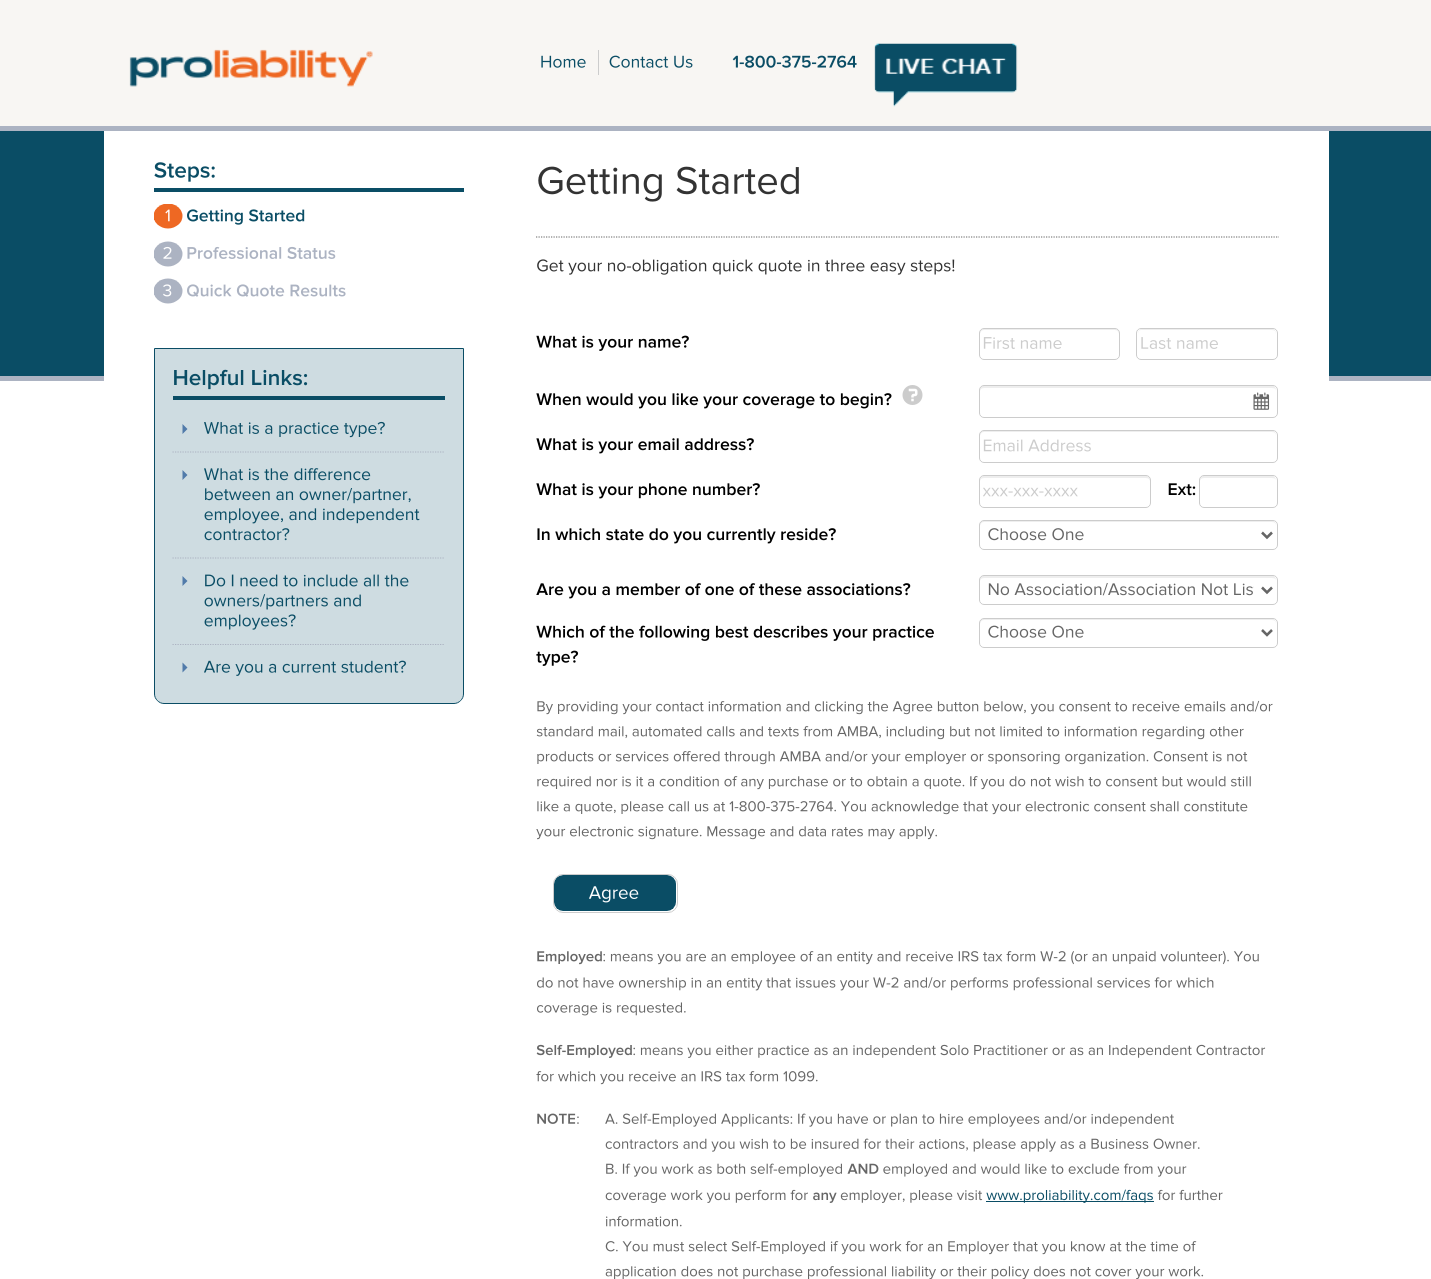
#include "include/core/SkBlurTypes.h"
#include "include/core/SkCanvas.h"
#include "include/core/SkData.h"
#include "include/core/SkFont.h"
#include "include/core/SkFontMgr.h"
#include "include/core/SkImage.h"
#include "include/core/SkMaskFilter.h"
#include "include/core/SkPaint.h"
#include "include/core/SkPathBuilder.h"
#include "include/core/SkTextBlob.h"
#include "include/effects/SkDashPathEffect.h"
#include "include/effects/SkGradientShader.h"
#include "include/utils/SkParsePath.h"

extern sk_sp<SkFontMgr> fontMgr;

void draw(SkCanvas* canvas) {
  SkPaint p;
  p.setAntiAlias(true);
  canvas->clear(SK_ColorWHITE);
  p.setColor(SkColorSetRGB(248, 246, 243));
  canvas->drawRect(SkRect::MakeLTRB(0, 0, 1431, 126), p);
  p.setColor(SkColorSetRGB(172, 179, 194));
  canvas->drawRect(SkRect::MakeLTRB(0, 126, 1431, 131), p);
  canvas->drawImageRect(SkImages::DeferredFromEncodedData(SkData::MakeFromFileName("images/1.png")), SkRect::MakeLTRB(129, 49, 373, 87), SkSamplingOptions());
  canvas->drawImageRect(SkImages::DeferredFromEncodedData(SkData::MakeFromFileName("images/2.png")), SkRect::MakeLTRB(541, 55, 586, 68), SkSamplingOptions());
  p.setColor(SkColorSetRGB(204, 204, 204));
  canvas->drawRect(SkRect::MakeLTRB(598, 50, 599, 75), p);
  canvas->drawImageRect(SkImages::DeferredFromEncodedData(SkData::MakeFromFileName("images/3.png")), SkRect::MakeLTRB(609, 55, 693, 68), SkSamplingOptions());
  canvas->drawImageRect(SkImages::DeferredFromEncodedData(SkData::MakeFromFileName("images/4.png")), SkRect::MakeLTRB(732, 55, 857, 68), SkSamplingOptions());
  canvas->drawImageRect(SkImages::DeferredFromEncodedData(SkData::MakeFromFileName("images/5.png")), SkRect::MakeLTRB(874, 43, 1018, 107), SkSamplingOptions());
  p.setColor(SkColorSetRGB(10, 77, 101));
  canvas->drawRect(SkRect::MakeLTRB(0, 131, 1431, 376), p);
  p.setColor(SkColorSetRGB(172, 179, 194));
  canvas->drawRect(SkRect::MakeLTRB(0, 376, 1431, 381), p);
  p.setColor(SK_ColorWHITE);
  canvas->drawRect(SkRect::MakeLTRB(104, 131, 1329, 381), p);
  p.setColor(SkColorSetRGB(10, 77, 101));
  canvas->drawRect(SkRect::MakeLTRB(154, 188, 464, 192), p);
  canvas->drawImageRect(SkImages::DeferredFromEncodedData(SkData::MakeFromFileName("images/6.png")), SkRect::MakeLTRB(154, 162, 215, 182), SkSamplingOptions());
  canvas->save();
  canvas->clipRect(SkRect::MakeLTRB(154, 204, 464, 316));
  p.setColor(SkColorSetRGB(238, 104, 35));
  canvas->drawOval(SkRect::MakeLTRB(153.5f, 203.5f, 182.5f, 228.5f), p);
  canvas->restore();
  canvas->drawImageRect(SkImages::DeferredFromEncodedData(SkData::MakeFromFileName("images/7.png")), SkRect::MakeLTRB(165, 209, 170, 222), SkSamplingOptions());
  canvas->drawImageRect(SkImages::DeferredFromEncodedData(SkData::MakeFromFileName("images/8.png")), SkRect::MakeLTRB(187, 209, 305, 225), SkSamplingOptions());
  canvas->save();
  canvas->clipRect(SkRect::MakeLTRB(154, 204, 464, 316));
  p.setColor(SkColorSetRGB(172, 179, 194));
  canvas->drawOval(SkRect::MakeLTRB(153.5f, 241.5f, 182.5f, 266.5f), p);
  canvas->restore();
  canvas->drawImageRect(SkImages::DeferredFromEncodedData(SkData::MakeFromFileName("images/9.png")), SkRect::MakeLTRB(163, 246, 172, 259), SkSamplingOptions());
  canvas->drawImageRect(SkImages::DeferredFromEncodedData(SkData::MakeFromFileName("images/10.png")), SkRect::MakeLTRB(187, 246, 336, 259), SkSamplingOptions());
  canvas->save();
  canvas->clipRect(SkRect::MakeLTRB(154, 204, 464, 316));
  canvas->drawOval(SkRect::MakeLTRB(153.5f, 278.5f, 182.5f, 303.5f), p);
  canvas->restore();
  canvas->drawImageRect(SkImages::DeferredFromEncodedData(SkData::MakeFromFileName("images/11.png")), SkRect::MakeLTRB(163, 284, 172, 297), SkSamplingOptions());
  canvas->drawImageRect(SkImages::DeferredFromEncodedData(SkData::MakeFromFileName("images/12.png")), SkRect::MakeLTRB(187, 284, 346, 297), SkSamplingOptions());
  p.setColor(SkColorSetRGB(206, 220, 225));
  canvas->drawPath(SkPathBuilder().moveTo(154.5f, 348.5f).lineTo(463.5f, 348.5f).lineTo(463.5f, 694).cubicTo(463.5f, 699, 459, 703.5f, 454, 703.5f).lineTo(164, 703.5f).cubicTo(159, 703.5f, 154.5f, 699, 154.5f, 694).close().detach(), p);
  p.setStyle(SkPaint::kStroke_Style);
  p.setStrokeWidth(1);
  p.setColor(SkColorSetRGB(10, 77, 101));
  canvas->drawPath(SkPathBuilder().moveTo(154.5f, 348.5f).lineTo(463.5f, 348.5f).lineTo(463.5f, 694).cubicTo(463.5f, 699, 459, 703.5f, 454, 703.5f).lineTo(164, 703.5f).cubicTo(159, 703.5f, 154.5f, 699, 154.5f, 694).close().detach(), p);
  p.setStyle(SkPaint::kFill_Style);
  canvas->drawRect(SkRect::MakeLTRB(173, 396, 445, 400), p);
  canvas->drawImageRect(SkImages::DeferredFromEncodedData(SkData::MakeFromFileName("images/13.png")), SkRect::MakeLTRB(174, 369, 308, 390), SkSamplingOptions());
  p.setStyle(SkPaint::kStroke_Style);
  p.setStrokeWidth(1.2f);
  p.setColor(SkColorSetRGB(172, 179, 194));
  p.setPathEffect(SkDashPathEffect::Make({{1.25f, 1.25f}}, 0));
  canvas->drawPath(SkPathBuilder().moveTo(172.5f, 452).lineTo(445, 452).detach(), p);
  p.setPathEffect(nullptr);
  p.setStyle(SkPaint::kFill_Style);
  p.setColor(SkColorSetRGB(81, 123, 170));
  canvas->drawPath(SkPathBuilder().moveTo(182.5f, 434).lineTo(187.5f, 429).lineTo(182.5f, 424).close().moveTo(182.5f, 480).lineTo(187.5f, 475).lineTo(182.5f, 470).close().detach(), p);
  canvas->drawImageRect(SkImages::DeferredFromEncodedData(SkData::MakeFromFileName("images/14.png")), SkRect::MakeLTRB(204, 421, 385, 438), SkSamplingOptions());
  p.setStyle(SkPaint::kStroke_Style);
  p.setColor(SkColorSetRGB(172, 179, 194));
  p.setPathEffect(SkDashPathEffect::Make({{1.25f, 1.25f}}, 0));
  canvas->drawPath(SkPathBuilder().moveTo(172.5f, 558).lineTo(445, 558).detach(), p);
  p.setPathEffect(nullptr);
  canvas->drawImageRect(SkImages::DeferredFromEncodedData(SkData::MakeFromFileName("images/15.png")), SkRect::MakeLTRB(204, 468, 371, 481), SkSamplingOptions());
  canvas->drawImageRect(SkImages::DeferredFromEncodedData(SkData::MakeFromFileName("images/16.png")), SkRect::MakeLTRB(205, 488, 411, 504), SkSamplingOptions());
  canvas->drawImageRect(SkImages::DeferredFromEncodedData(SkData::MakeFromFileName("images/17.png")), SkRect::MakeLTRB(204, 508, 420, 524), SkSamplingOptions());
  canvas->drawImageRect(SkImages::DeferredFromEncodedData(SkData::MakeFromFileName("images/18.png")), SkRect::MakeLTRB(204, 528, 290, 541), SkSamplingOptions());
  p.setPathEffect(SkDashPathEffect::Make({{1.25f, 1.25f}}, 0));
  canvas->drawPath(SkPathBuilder().moveTo(172.5f, 644.5f).lineTo(445, 644.5f).detach(), p);
  p.setPathEffect(nullptr);
  p.setStyle(SkPaint::kFill_Style);
  p.setColor(SkColorSetRGB(81, 123, 170));
  canvas->drawPath(SkPathBuilder().moveTo(182.5f, 586).lineTo(187.5f, 581).lineTo(182.5f, 576).close().detach(), p);
  canvas->drawImageRect(SkImages::DeferredFromEncodedData(SkData::MakeFromFileName("images/19.png")), SkRect::MakeLTRB(205, 574, 409, 587), SkSamplingOptions());
  canvas->drawImageRect(SkImages::DeferredFromEncodedData(SkData::MakeFromFileName("images/20.png")), SkRect::MakeLTRB(204, 594, 361, 610), SkSamplingOptions());
  canvas->drawImageRect(SkImages::DeferredFromEncodedData(SkData::MakeFromFileName("images/21.png")), SkRect::MakeLTRB(204, 614, 296, 630), SkSamplingOptions());
  canvas->drawPath(SkPathBuilder().moveTo(182.5f, 672.5f).lineTo(187.5f, 667.5f).lineTo(182.5f, 662.5f).close().detach(), p);
  canvas->drawImageRect(SkImages::DeferredFromEncodedData(SkData::MakeFromFileName("images/22.png")), SkRect::MakeLTRB(204, 660, 406, 676), SkSamplingOptions());
  canvas->drawImageRect(SkImages::DeferredFromEncodedData(SkData::MakeFromFileName("images/23.png")), SkRect::MakeLTRB(538, 166, 799, 202), SkSamplingOptions());
  p.setStyle(SkPaint::kStroke_Style);
  p.setColor(SkColorSetRGB(102, 102, 102));
  p.setPathEffect(SkDashPathEffect::Make({{1.25f, 1.25f}}, 0));
  canvas->drawPath(SkPathBuilder().moveTo(536, 237).lineTo(1279, 237).detach(), p);
  p.setPathEffect(nullptr);
  canvas->drawImageRect(SkImages::DeferredFromEncodedData(SkData::MakeFromFileName("images/24.png")), SkRect::MakeLTRB(537, 259, 955, 275), SkSamplingOptions());
  canvas->drawImageRect(SkImages::DeferredFromEncodedData(SkData::MakeFromFileName("images/25.png")), SkRect::MakeLTRB(536, 335, 689, 351), SkSamplingOptions());
  p.setStyle(SkPaint::kFill_Style);
  p.setColor(SkColorSetRGB(238, 238, 238));
  canvas->drawPath(SkPathBuilder().moveTo(984, 330).lineTo(1115, 330).cubicTo(1117, 330, 1119, 332, 1119, 334).lineTo(1119, 333).cubicTo(1119, 331, 1117, 329, 1115, 329).lineTo(984, 329).cubicTo(982, 329, 980, 331, 980, 333).lineTo(980, 334).cubicTo(980, 332, 982, 330, 984, 330).close().detach(), p);
  p.setStyle(SkPaint::kStroke_Style);
  p.setStrokeWidth(1);
  p.setColor(SkColorSetRGB(204, 204, 204));
  canvas->drawRoundRect(SkRect::MakeLTRB(979.5f, 328.5f, 1119.5f, 359.5f), 4.5f, 4.5f, p);
  canvas->drawImageRect(SkImages::DeferredFromEncodedData(SkData::MakeFromFileName("images/26.png")), SkRect::MakeLTRB(983, 337, 1062, 349), SkSamplingOptions());
  p.setStyle(SkPaint::kFill_Style);
  p.setColor(SkColorSetRGB(238, 238, 238));
  canvas->drawPath(SkPathBuilder().moveTo(1141, 330).lineTo(1272, 330).cubicTo(1275, 330, 1276, 332, 1276, 334).lineTo(1276, 333).cubicTo(1276, 331, 1274, 329, 1272, 329).lineTo(1142, 329).cubicTo(1140, 329, 1138, 331, 1138, 333).lineTo(1138, 334).cubicTo(1138, 332, 1139, 330, 1141, 330).close().detach(), p);
  p.setStyle(SkPaint::kStroke_Style);
  p.setColor(SkColorSetRGB(204, 204, 204));
  canvas->drawRoundRect(SkRect::MakeLTRB(1136.5f, 328.5f, 1277.5f, 359.5f), 4.5f, 4.5f, p);
  canvas->drawImageRect(SkImages::DeferredFromEncodedData(SkData::MakeFromFileName("images/27.png")), SkRect::MakeLTRB(1141, 337, 1218, 349), SkSamplingOptions());
  canvas->drawImageRect(SkImages::DeferredFromEncodedData(SkData::MakeFromFileName("images/28.png")), SkRect::MakeLTRB(536, 393, 892, 409), SkSamplingOptions());
  canvas->drawImageRect(SkImages::DeferredFromEncodedData(SkData::MakeFromFileName("images/29.png")), SkRect::MakeLTRB(902, 385, 923, 405), SkSamplingOptions());
  p.setStyle(SkPaint::kFill_Style);
  p.setColor(SkColorSetRGB(238, 238, 238));
  canvas->drawPath(SkPathBuilder().moveTo(984, 388).lineTo(1272, 388).cubicTo(1275, 388, 1276, 389, 1276, 391).cubicTo(1276, 388, 1275, 386, 1272, 386).lineTo(984, 386).cubicTo(981, 386, 980, 388, 980, 391).cubicTo(980, 389, 982, 388, 984, 388).close().detach(), p);
  p.setStyle(SkPaint::kStroke_Style);
  p.setColor(SkColorSetRGB(204, 204, 204));
  canvas->drawRoundRect(SkRect::MakeLTRB(979.5f, 385.5f, 1277.5f, 417.5f), 4.5f, 4.5f, p);
  canvas->drawImageRect(SkImages::DeferredFromEncodedData(SkData::MakeFromFileName("images/30.png")), SkRect::MakeLTRB(1253, 392, 1270, 410), SkSamplingOptions());
  canvas->drawImageRect(SkImages::DeferredFromEncodedData(SkData::MakeFromFileName("images/31.png")), SkRect::MakeLTRB(536, 438, 754, 454), SkSamplingOptions());
  p.setStyle(SkPaint::kFill_Style);
  p.setColor(SkColorSetRGB(238, 238, 238));
  canvas->drawPath(SkPathBuilder().moveTo(984, 432).lineTo(1272, 432).cubicTo(1275, 432, 1276, 434, 1276, 436).cubicTo(1276, 433, 1275, 431, 1272, 431).lineTo(984, 431).cubicTo(981, 431, 980, 433, 980, 436).cubicTo(980, 434, 982, 432, 984, 432).close().detach(), p);
  p.setStyle(SkPaint::kStroke_Style);
  p.setColor(SkColorSetRGB(204, 204, 204));
  canvas->drawRoundRect(SkRect::MakeLTRB(979.5f, 430.5f, 1277.5f, 462.5f), 4.5f, 4.5f, p);
  canvas->drawImageRect(SkImages::DeferredFromEncodedData(SkData::MakeFromFileName("images/32.png")), SkRect::MakeLTRB(983, 439, 1091, 452), SkSamplingOptions());
  canvas->drawImageRect(SkImages::DeferredFromEncodedData(SkData::MakeFromFileName("images/33.png")), SkRect::MakeLTRB(536, 483, 760, 499), SkSamplingOptions());
  p.setStyle(SkPaint::kFill_Style);
  p.setColor(SkColorSetRGB(238, 238, 238));
  canvas->drawPath(SkPathBuilder().moveTo(984, 478).lineTo(1146, 478).cubicTo(1148, 478, 1150, 479, 1150, 481).lineTo(1150, 480).cubicTo(1150, 478, 1148, 476, 1146, 476).lineTo(984, 476).cubicTo(982, 476, 980, 478, 980, 480).lineTo(980, 481).cubicTo(980, 479, 982, 478, 984, 478).close().detach(), p);
  p.setStyle(SkPaint::kStroke_Style);
  p.setColor(SkColorSetRGB(204, 204, 204));
  canvas->drawRoundRect(SkRect::MakeLTRB(979.5f, 475.5f, 1150.5f, 507.5f), 4.5f, 4.5f, p);
  canvas->drawImageRect(SkImages::DeferredFromEncodedData(SkData::MakeFromFileName("images/34.png")), SkRect::MakeLTRB(983, 487, 1078, 497), SkSamplingOptions());
  canvas->drawImageRect(SkImages::DeferredFromEncodedData(SkData::MakeFromFileName("images/35.png")), SkRect::MakeLTRB(1168, 483, 1196, 496), SkSamplingOptions());
  p.setStyle(SkPaint::kFill_Style);
  p.setColor(SkColorSetRGB(238, 238, 238));
  canvas->drawPath(SkPathBuilder().moveTo(1204, 478).lineTo(1272, 478).cubicTo(1275, 478, 1276, 479, 1276, 481).cubicTo(1276, 473, 1266, 476, 1261, 476).lineTo(1215, 476).cubicTo(1210, 476, 1200, 473, 1200, 481).cubicTo(1200, 479, 1202, 478, 1204, 478).close().detach(), p);
  p.setStyle(SkPaint::kStroke_Style);
  p.setColor(SkColorSetRGB(204, 204, 204));
  canvas->drawRoundRect(SkRect::MakeLTRB(1199.5f, 475.5f, 1277.5f, 507.5f), 4.5f, 4.5f, p);
  canvas->drawImageRect(SkImages::DeferredFromEncodedData(SkData::MakeFromFileName("images/36.png")), SkRect::MakeLTRB(537, 528, 836, 544), SkSamplingOptions());
  p.setStyle(SkPaint::kFill_Style);
  p.setColor(SkColorSetRGB(238, 238, 238));
  canvas->drawPath(SkPathBuilder().moveTo(984, 522).lineTo(1272, 522).cubicTo(1275, 522, 1276, 524, 1276, 526).cubicTo(1276, 523, 1275, 521, 1272, 521).lineTo(984, 521).cubicTo(981, 521, 980, 523, 980, 526).cubicTo(980, 524, 982, 522, 984, 522).close().detach(), p);
  p.setStyle(SkPaint::kStroke_Style);
  p.setColor(SkColorSetRGB(204, 204, 204));
  canvas->drawRoundRect(SkRect::MakeLTRB(979.5f, 520.5f, 1277.5f, 549.5f), 4.5f, 4.5f, p);
  p.setStrokeWidth(2.5f);
  p.setColor(SkColorSetRGB(102, 102, 102));
  canvas->drawPath(SkPathBuilder().moveTo(1262, 532.5f).lineTo(1267, 537.5f).lineTo(1272, 532.5f).detach(), p);
  canvas->drawImageRect(SkImages::DeferredFromEncodedData(SkData::MakeFromFileName("images/37.png")), SkRect::MakeLTRB(988, 528, 1084, 541), SkSamplingOptions());
  canvas->drawImageRect(SkImages::DeferredFromEncodedData(SkData::MakeFromFileName("images/38.png")), SkRect::MakeLTRB(536, 583, 911, 599), SkSamplingOptions());
  p.setStyle(SkPaint::kFill_Style);
  p.setColor(SkColorSetRGB(238, 238, 238));
  canvas->drawPath(SkPathBuilder().moveTo(984, 578).lineTo(1272, 578).cubicTo(1275, 578, 1276, 579, 1276, 581).cubicTo(1276, 578, 1275, 576, 1272, 576).lineTo(984, 576).cubicTo(981, 576, 980, 578, 980, 581).cubicTo(980, 579, 982, 578, 984, 578).close().detach(), p);
  p.setStyle(SkPaint::kStroke_Style);
  p.setStrokeWidth(1);
  p.setColor(SkColorSetRGB(204, 204, 204));
  canvas->drawRoundRect(SkRect::MakeLTRB(979.5f, 575.5f, 1277.5f, 604.5f), 4.5f, 4.5f, p);
  p.setStrokeWidth(2.5f);
  p.setColor(SkColorSetRGB(102, 102, 102));
  canvas->drawPath(SkPathBuilder().moveTo(1262, 587.5f).lineTo(1267, 592.5f).lineTo(1272, 587.5f).detach(), p);
  canvas->drawImageRect(SkImages::DeferredFromEncodedData(SkData::MakeFromFileName("images/39.png")), SkRect::MakeLTRB(988, 583, 1254, 596), SkSamplingOptions());
  canvas->drawImageRect(SkImages::DeferredFromEncodedData(SkData::MakeFromFileName("images/40.png")), SkRect::MakeLTRB(536, 625, 934, 641), SkSamplingOptions());
  canvas->drawImageRect(SkImages::DeferredFromEncodedData(SkData::MakeFromFileName("images/41.png")), SkRect::MakeLTRB(536, 650, 579, 666), SkSamplingOptions());
  p.setStyle(SkPaint::kFill_Style);
  p.setColor(SkColorSetRGB(238, 238, 238));
  canvas->drawPath(SkPathBuilder().moveTo(984, 620).lineTo(1272, 620).cubicTo(1275, 620, 1276, 622, 1276, 624).cubicTo(1276, 621, 1275, 619, 1272, 619).lineTo(984, 619).cubicTo(981, 619, 980, 621, 980, 624).cubicTo(980, 622, 982, 620, 984, 620).close().detach(), p);
  p.setStyle(SkPaint::kStroke_Style);
  p.setStrokeWidth(1);
  p.setColor(SkColorSetRGB(204, 204, 204));
  canvas->drawRoundRect(SkRect::MakeLTRB(979.5f, 618.5f, 1277.5f, 647.5f), 4.5f, 4.5f, p);
  p.setStrokeWidth(2.5f);
  p.setColor(SkColorSetRGB(102, 102, 102));
  canvas->drawPath(SkPathBuilder().moveTo(1262, 630).lineTo(1267, 635).lineTo(1272, 630).detach(), p);
  canvas->drawImageRect(SkImages::DeferredFromEncodedData(SkData::MakeFromFileName("images/42.png")), SkRect::MakeLTRB(988, 625, 1084, 638), SkSamplingOptions());
  canvas->drawImageRect(SkImages::DeferredFromEncodedData(SkData::MakeFromFileName("images/43.png")), SkRect::MakeLTRB(537, 700, 1273, 715), SkSamplingOptions());
  canvas->drawImageRect(SkImages::DeferredFromEncodedData(SkData::MakeFromFileName("images/44.png")), SkRect::MakeLTRB(536, 726, 1244, 740), SkSamplingOptions());
  canvas->drawImageRect(SkImages::DeferredFromEncodedData(SkData::MakeFromFileName("images/45.png")), SkRect::MakeLTRB(537, 750, 1248, 765), SkSamplingOptions());
  canvas->drawImageRect(SkImages::DeferredFromEncodedData(SkData::MakeFromFileName("images/46.png")), SkRect::MakeLTRB(537, 776, 1251, 790), SkSamplingOptions());
  canvas->drawImageRect(SkImages::DeferredFromEncodedData(SkData::MakeFromFileName("images/47.png")), SkRect::MakeLTRB(537, 801, 1248, 815), SkSamplingOptions());
  canvas->drawImageRect(SkImages::DeferredFromEncodedData(SkData::MakeFromFileName("images/48.png")), SkRect::MakeLTRB(536, 826, 937, 840), SkSamplingOptions());
  p.setStyle(SkPaint::kFill_Style);
  p.setColor(SkColorSetRGB(10, 77, 101));
  canvas->drawRoundRect(SkRect::MakeLTRB(554, 875, 676, 911), 9, 9, p);
  p.setStyle(SkPaint::kStroke_Style);
  p.setStrokeWidth(1);
  p.setColor(SkColorSetRGB(204, 204, 204));
  canvas->drawRoundRect(SkRect::MakeLTRB(553.5f, 874.5f, 677.5f, 912.5f), 9.5f, 9.5f, p);
  canvas->drawImageRect(SkImages::DeferredFromEncodedData(SkData::MakeFromFileName("images/49.png")), SkRect::MakeLTRB(589, 886, 639, 903), SkSamplingOptions());
  canvas->drawImageRect(SkImages::DeferredFromEncodedData(SkData::MakeFromFileName("images/50.png")), SkRect::MakeLTRB(537, 951, 602, 965), SkSamplingOptions());
  canvas->drawImageRect(SkImages::DeferredFromEncodedData(SkData::MakeFromFileName("images/51.png")), SkRect::MakeLTRB(603, 951, 1259, 965), SkSamplingOptions());
  canvas->drawImageRect(SkImages::DeferredFromEncodedData(SkData::MakeFromFileName("images/52.png")), SkRect::MakeLTRB(537, 977, 1214, 991), SkSamplingOptions());
  canvas->drawImageRect(SkImages::DeferredFromEncodedData(SkData::MakeFromFileName("images/53.png")), SkRect::MakeLTRB(537, 1002, 686, 1016), SkSamplingOptions());
  canvas->drawImageRect(SkImages::DeferredFromEncodedData(SkData::MakeFromFileName("images/54.png")), SkRect::MakeLTRB(536, 1044, 632, 1058), SkSamplingOptions());
  canvas->drawImageRect(SkImages::DeferredFromEncodedData(SkData::MakeFromFileName("images/55.png")), SkRect::MakeLTRB(633, 1044, 1266, 1058), SkSamplingOptions());
  canvas->drawImageRect(SkImages::DeferredFromEncodedData(SkData::MakeFromFileName("images/56.png")), SkRect::MakeLTRB(536, 1071, 818, 1085), SkSamplingOptions());
  canvas->drawImageRect(SkImages::DeferredFromEncodedData(SkData::MakeFromFileName("images/57.png")), SkRect::MakeLTRB(537, 1113, 576, 1124), SkSamplingOptions());
  canvas->drawImageRect(SkImages::DeferredFromEncodedData(SkData::MakeFromFileName("images/58.png")), SkRect::MakeLTRB(577, 1116, 579, 1124), SkSamplingOptions());
  canvas->drawImageRect(SkImages::DeferredFromEncodedData(SkData::MakeFromFileName("images/59.png")), SkRect::MakeLTRB(605, 1113, 1174, 1127), SkSamplingOptions());
  canvas->drawImageRect(SkImages::DeferredFromEncodedData(SkData::MakeFromFileName("images/60.png")), SkRect::MakeLTRB(605, 1138, 1200, 1152), SkSamplingOptions());
  canvas->drawImageRect(SkImages::DeferredFromEncodedData(SkData::MakeFromFileName("images/61.png")), SkRect::MakeLTRB(606, 1163, 842, 1177), SkSamplingOptions());
  canvas->drawImageRect(SkImages::DeferredFromEncodedData(SkData::MakeFromFileName("images/62.png")), SkRect::MakeLTRB(847, 1163, 879, 1174), SkSamplingOptions());
  canvas->drawImageRect(SkImages::DeferredFromEncodedData(SkData::MakeFromFileName("images/63.png")), SkRect::MakeLTRB(883, 1163, 1187, 1177), SkSamplingOptions());
  canvas->drawImageRect(SkImages::DeferredFromEncodedData(SkData::MakeFromFileName("images/64.png")), SkRect::MakeLTRB(605, 1189, 808, 1203), SkSamplingOptions());
  canvas->drawImageRect(SkImages::DeferredFromEncodedData(SkData::MakeFromFileName("images/65.png")), SkRect::MakeLTRB(813, 1192, 837, 1203), SkSamplingOptions());
  canvas->drawImageRect(SkImages::DeferredFromEncodedData(SkData::MakeFromFileName("images/66.png")), SkRect::MakeLTRB(840, 1190, 983, 1203), SkSamplingOptions());
  p.setStyle(SkPaint::kFill_Style);
  p.setColor(SkColorSetRGB(10, 77, 101));
  canvas->drawRect(SkRect::MakeLTRB(986, 1201, 1154, 1202), p);
  canvas->drawImageRect(SkImages::DeferredFromEncodedData(SkData::MakeFromFileName("images/67.png")), SkRect::MakeLTRB(986, 1189, 1153, 1203), SkSamplingOptions());
  canvas->drawImageRect(SkImages::DeferredFromEncodedData(SkData::MakeFromFileName("images/68.png")), SkRect::MakeLTRB(1157, 1189, 1223, 1201), SkSamplingOptions());
  canvas->drawImageRect(SkImages::DeferredFromEncodedData(SkData::MakeFromFileName("images/69.png")), SkRect::MakeLTRB(606, 1216, 682, 1227), SkSamplingOptions());
  canvas->drawImageRect(SkImages::DeferredFromEncodedData(SkData::MakeFromFileName("images/70.png")), SkRect::MakeLTRB(605, 1241, 1197, 1255), SkSamplingOptions());
  canvas->drawImageRect(SkImages::DeferredFromEncodedData(SkData::MakeFromFileName("images/71.png")), SkRect::MakeLTRB(605, 1266, 1204, 1279), SkSamplingOptions());
}
